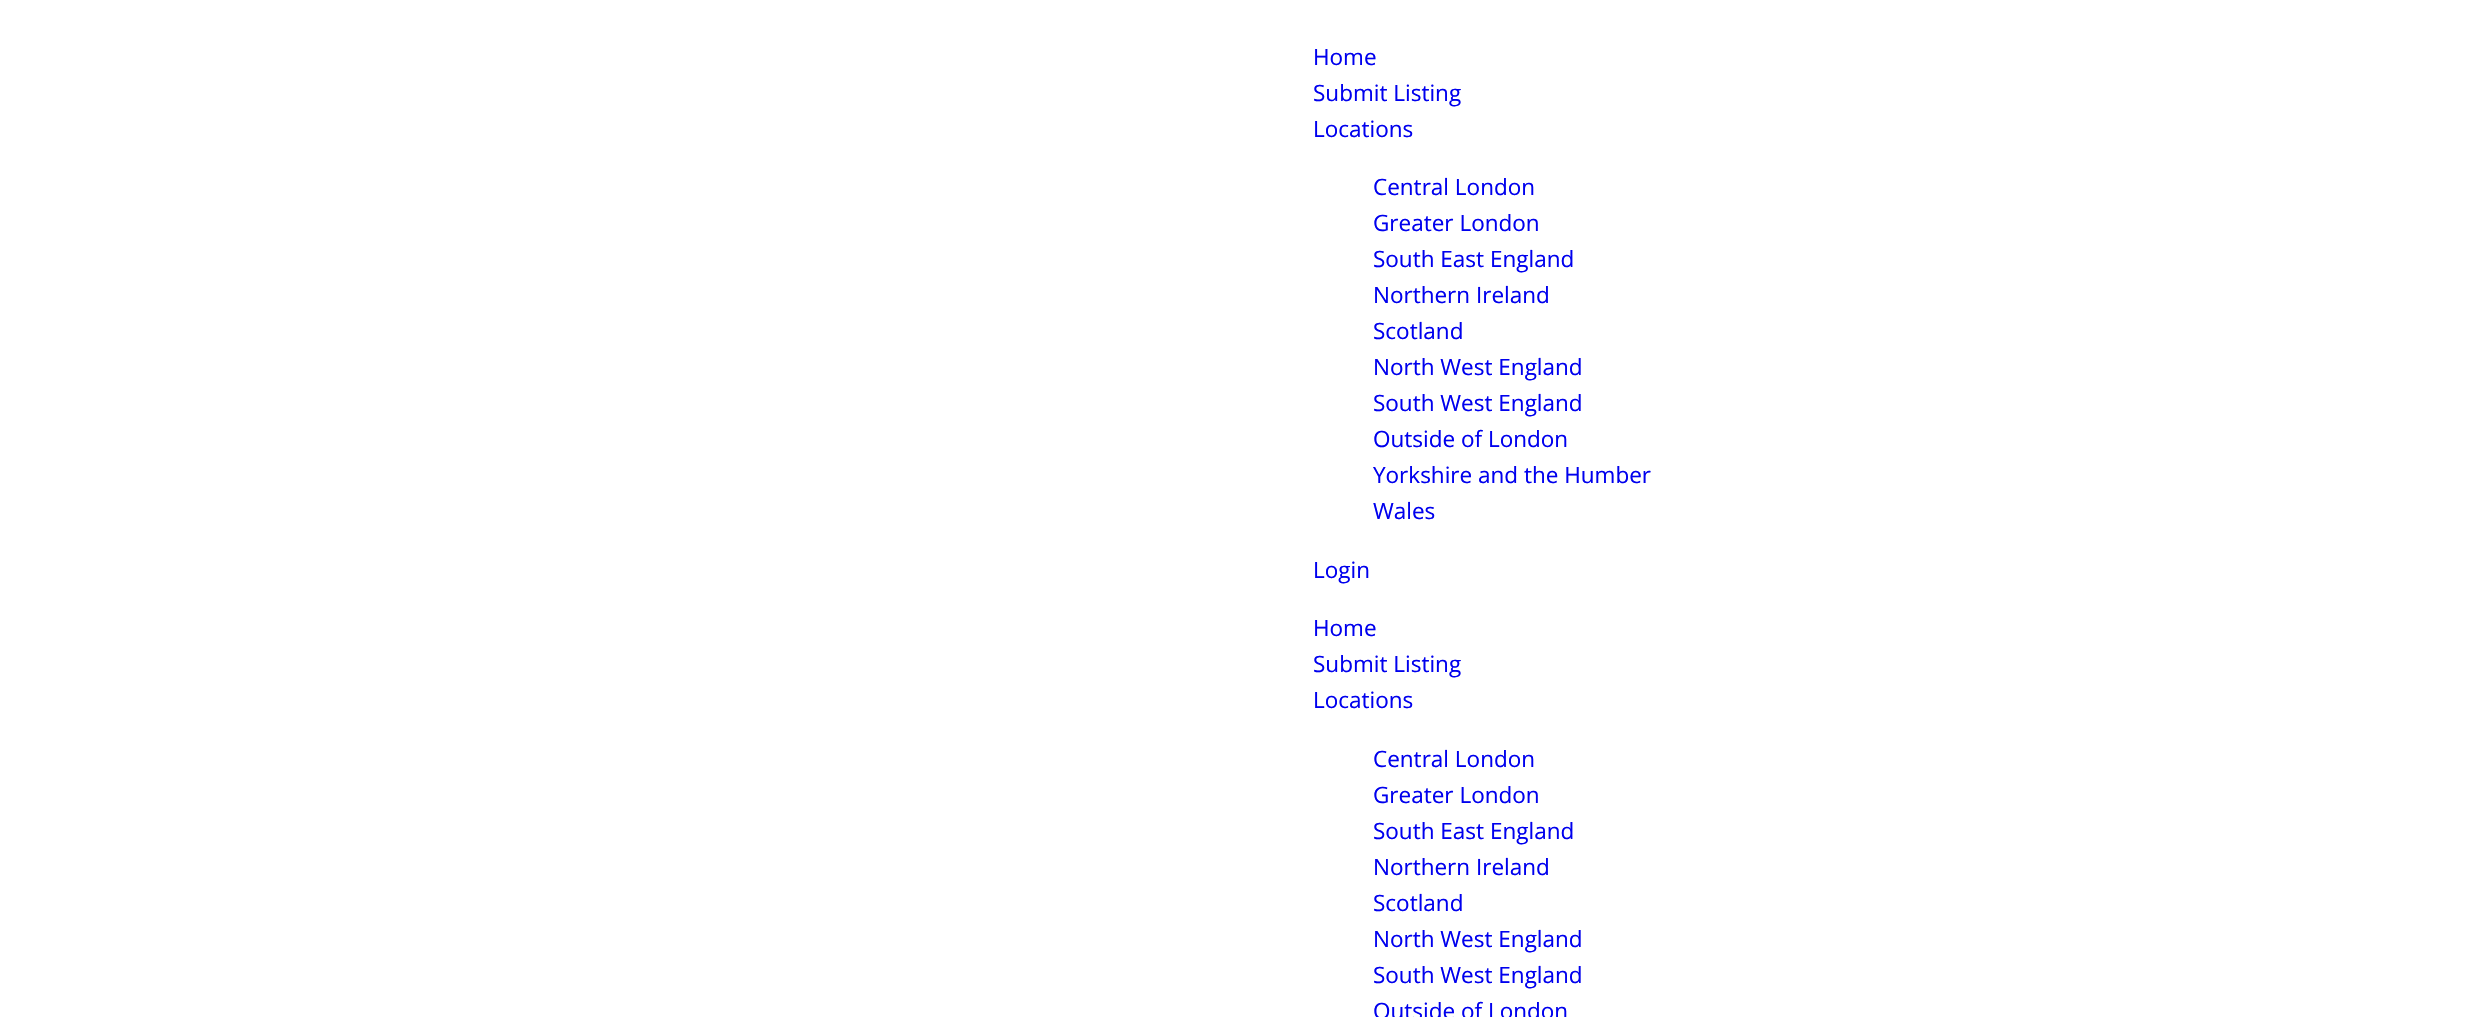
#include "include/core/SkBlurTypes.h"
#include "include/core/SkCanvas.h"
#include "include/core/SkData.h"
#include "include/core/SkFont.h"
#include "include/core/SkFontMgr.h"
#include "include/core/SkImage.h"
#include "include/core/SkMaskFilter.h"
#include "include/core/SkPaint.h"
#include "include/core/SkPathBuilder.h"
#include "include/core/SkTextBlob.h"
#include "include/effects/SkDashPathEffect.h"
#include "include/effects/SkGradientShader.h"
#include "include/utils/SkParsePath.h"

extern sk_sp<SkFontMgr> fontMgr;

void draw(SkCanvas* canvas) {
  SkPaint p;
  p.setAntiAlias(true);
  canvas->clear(SK_ColorWHITE);
  SkFont font1(fontMgr->matchFamilyStyle("Open Sans", SkFontStyle::Normal()), 22.5f);
  font1.setSubpixel(true);
  p.setColor(SkColorSetRGB(0, 0, 238));
  canvas->drawString("Home", 1313, 65, font1, p);
  canvas->drawString("Submit Listing", 1313, 101, font1, p);
  canvas->drawString("Locations", 1313, 137, font1, p);
  canvas->drawString("Central London", 1373, 195, font1, p);
  canvas->drawString("Greater London", 1373, 231, font1, p);
  canvas->drawString("South East England", 1373, 267, font1, p);
  canvas->drawString("Northern Ireland", 1373, 303, font1, p);
  canvas->drawString("Scotland", 1373, 339, font1, p);
  canvas->drawString("North West England", 1373, 375, font1, p);
  canvas->drawString("South West England", 1373, 411, font1, p);
  canvas->drawString("Outside of London", 1373, 447, font1, p);
  canvas->drawString("Yorkshire and the Humber", 1373, 483, font1, p);
  canvas->drawString("Wales", 1373, 519, font1, p);
  canvas->drawString("Login", 1313, 578, font1, p);
  canvas->drawString("Home", 1313, 636, font1, p);
  canvas->drawString("Submit Listing", 1313, 672, font1, p);
  canvas->drawString("Locations", 1313, 708, font1, p);
  canvas->drawString("Central London", 1373, 767, font1, p);
  canvas->drawString("Greater London", 1373, 803, font1, p);
  canvas->drawString("South East England", 1373, 839, font1, p);
  canvas->drawString("Northern Ireland", 1373, 875, font1, p);
  canvas->drawString("Scotland", 1373, 911, font1, p);
  canvas->drawString("North West England", 1373, 947, font1, p);
  canvas->drawString("South West England", 1373, 983, font1, p);
  canvas->drawString("Outside of London", 1373, 1019, font1, p);
}
